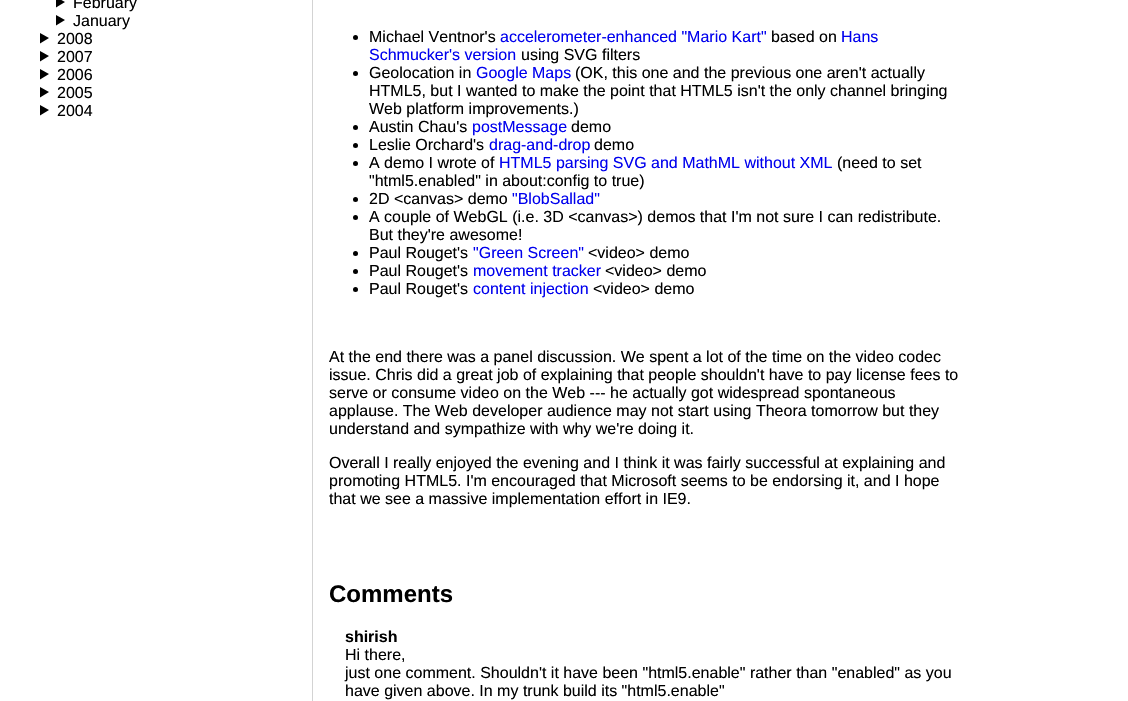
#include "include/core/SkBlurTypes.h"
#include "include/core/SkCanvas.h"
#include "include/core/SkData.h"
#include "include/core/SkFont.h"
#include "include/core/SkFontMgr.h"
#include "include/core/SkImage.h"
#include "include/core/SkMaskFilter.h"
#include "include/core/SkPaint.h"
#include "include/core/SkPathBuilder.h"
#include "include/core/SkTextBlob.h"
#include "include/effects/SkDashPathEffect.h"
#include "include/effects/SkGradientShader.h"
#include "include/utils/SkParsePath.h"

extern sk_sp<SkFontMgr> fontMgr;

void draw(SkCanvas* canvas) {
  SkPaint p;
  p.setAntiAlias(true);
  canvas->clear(SK_ColorWHITE);
  p.setColor(SK_ColorBLACK);
  canvas->drawPath(SkPathBuilder().moveTo(56, -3).lineTo(65, 2).lineTo(56, 7.5f).close().detach(), p);
  canvas->drawPath(SkPathBuilder().moveTo(56, 15).lineTo(65, 20).lineTo(56, 25.5f).close().detach(), p);
  canvas->drawPath(SkPathBuilder().moveTo(40, 33).lineTo(49, 38).lineTo(40, 43.5f).close().detach(), p);
  canvas->drawPath(SkPathBuilder().moveTo(40, 51).lineTo(49, 56).lineTo(40, 61.5f).close().detach(), p);
  canvas->drawPath(SkPathBuilder().moveTo(40, 69).lineTo(49, 74).lineTo(40, 79.5f).close().detach(), p);
  canvas->drawPath(SkPathBuilder().moveTo(40, 87).lineTo(49, 92).lineTo(40, 97.5f).close().detach(), p);
  canvas->drawPath(SkPathBuilder().moveTo(40, 105).lineTo(49, 110).lineTo(40, 115.5f).close().detach(), p);
  p.setColor(SkColorSetRGB(211, 211, 211));
  canvas->drawRect(SkRect::MakeLTRB(312, 0, 313, 701), p);
  p.setColor(SK_ColorBLACK);
  canvas->drawCircle(355.5f, 37.5f, 2.5f, p);
  canvas->drawCircle(355.5f, 73.5f, 2.5f, p);
  canvas->drawCircle(355.5f, 127.5f, 2.5f, p);
  canvas->drawCircle(355.5f, 145.5f, 2.5f, p);
  canvas->drawCircle(355.5f, 163.5f, 2.5f, p);
  canvas->drawCircle(355.5f, 199.5f, 2.5f, p);
  canvas->drawCircle(355.5f, 217.5f, 2.5f, p);
  canvas->drawCircle(355.5f, 253.5f, 2.5f, p);
  canvas->drawCircle(355.5f, 271.5f, 2.5f, p);
  canvas->drawCircle(355.5f, 289.5f, 2.5f, p);
  SkFont font1(fontMgr->matchFamilyStyle("Liberation Sans", SkFontStyle::Normal()), 16);
  font1.setSubpixel(true);
  canvas->drawString("February", 73, 8, font1, p);
  canvas->drawString("January", 73, 26, font1, p);
  canvas->drawString("2008", 57, 44, font1, p);
  canvas->drawString("2007", 57, 62, font1, p);
  canvas->drawString("2006", 57, 80, font1, p);
  canvas->drawString("2005", 57, 98, font1, p);
  canvas->drawString("2004", 57, 116, font1, p);
  canvas->drawString("Michael Ventnor's", 369, 42, font1, p);
  p.setColor(SkColorSetRGB(0, 0, 238));
  canvas->drawString("accelerometer-enhanced \"Mario Kart\"", 500, 42, font1, p);
  p.setColor(SK_ColorBLACK);
  canvas->drawString("based on", 771, 42, font1, p);
  p.setColor(SkColorSetRGB(0, 0, 238));
  canvas->drawString("Hans", 841, 42, font1, p);
  canvas->drawString("Schmucker's version", 369, 60, font1, p);
  p.setColor(SK_ColorBLACK);
  canvas->drawString("using SVG filters", 521, 60, font1, p);
  canvas->drawString("Geolocation in", 369, 78, font1, p);
  p.setColor(SkColorSetRGB(0, 0, 238));
  canvas->drawString("Google Maps", 476, 78, font1, p);
  p.setColor(SK_ColorBLACK);
  canvas->drawString("(OK, this one and the previous one aren't actually", 575, 78, font1, p);
  canvas->drawString("HTML5, but I wanted to make the point that HTML5 isn't the only channel bringing", 369, 96, font1, p);
  canvas->drawString("Web platform improvements.)", 369, 114, font1, p);
  canvas->drawString("Austin Chau's", 369, 132, font1, p);
  p.setColor(SkColorSetRGB(0, 0, 238));
  canvas->drawString("postMessage", 472, 132, font1, p);
  p.setColor(SK_ColorBLACK);
  canvas->drawString("demo", 571, 132, font1, p);
  canvas->drawString("Leslie Orchard's", 369, 150, font1, p);
  p.setColor(SkColorSetRGB(0, 0, 238));
  canvas->drawString("drag-and-drop", 489, 150, font1, p);
  p.setColor(SK_ColorBLACK);
  canvas->drawString("demo", 594, 150, font1, p);
  canvas->drawString("A demo I wrote of", 369, 168, font1, p);
  p.setColor(SkColorSetRGB(0, 0, 238));
  canvas->drawString("HTML5 parsing SVG and MathML without XML", 499, 168, font1, p);
  p.setColor(SK_ColorBLACK);
  canvas->drawString("(need to set", 837, 168, font1, p);
  canvas->drawString("\"html5.enabled\" in about:config to true)", 369, 186, font1, p);
  canvas->drawString("2D <canvas> demo", 369, 204, font1, p);
  p.setColor(SkColorSetRGB(0, 0, 238));
  canvas->drawString("\"BlobSallad\"", 512, 204, font1, p);
  p.setColor(SK_ColorBLACK);
  canvas->drawString("A couple of WebGL (i.e. 3D <canvas>) demos that I'm not sure I can redistribute.", 369, 222, font1, p);
  canvas->drawString("But they're awesome!", 369, 240, font1, p);
  canvas->drawString("Paul Rouget's", 369, 258, font1, p);
  p.setColor(SkColorSetRGB(0, 0, 238));
  canvas->drawString("\"Green Screen\"", 473, 258, font1, p);
  p.setColor(SK_ColorBLACK);
  canvas->drawString("<video> demo", 588, 258, font1, p);
  canvas->drawString("Paul Rouget's", 369, 276, font1, p);
  p.setColor(SkColorSetRGB(0, 0, 238));
  canvas->drawString("movement tracker", 473, 276, font1, p);
  p.setColor(SK_ColorBLACK);
  canvas->drawString("<video> demo", 605, 276, font1, p);
  canvas->drawString("Paul Rouget's", 369, 294, font1, p);
  p.setColor(SkColorSetRGB(0, 0, 238));
  canvas->drawString("content injection", 473, 294, font1, p);
  p.setColor(SK_ColorBLACK);
  canvas->drawString("<video> demo", 593, 294, font1, p);
  canvas->drawString("At the end there was a panel discussion. We spent a lot of the time on the video codec", 329, 362, font1, p);
  canvas->drawString("issue. Chris did a great job of explaining that people shouldn't have to pay license fees to", 329, 380, font1, p);
  canvas->drawString("serve or consume video on the Web --- he actually got widespread spontaneous", 329, 398, font1, p);
  canvas->drawString("applause. The Web developer audience may not start using Theora tomorrow but they", 329, 416, font1, p);
  canvas->drawString("understand and sympathize with why we're doing it.", 329, 434, font1, p);
  canvas->drawString("Overall I really enjoyed the evening and I think it was fairly successful at explaining and", 329, 468, font1, p);
  canvas->drawString("promoting HTML5. I'm encouraged that Microsoft seems to be endorsing it, and I hope", 329, 486, font1, p);
  canvas->drawString("that we see a massive implementation effort in IE9.", 329, 504, font1, p);
  SkFont font2(fontMgr->matchFamilyStyle("Liberation Sans", SkFontStyle::Bold()), 24);
  font2.setSubpixel(true);
  canvas->drawString("Comments", 329, 602, font2, p);
  SkFont font3(fontMgr->matchFamilyStyle("Liberation Sans", SkFontStyle::Bold()), 16);
  font3.setSubpixel(true);
  canvas->drawString("shirish", 345, 642, font3, p);
  canvas->drawString("Hi there,", 345, 660, font1, p);
  canvas->drawString("just one comment. Shouldn't it have been \"html5.enable\" rather than \"enabled\" as you", 345, 678, font1, p);
  canvas->drawString("have given above. In my trunk build its \"html5.enable\"", 345, 696, font1, p);
}
